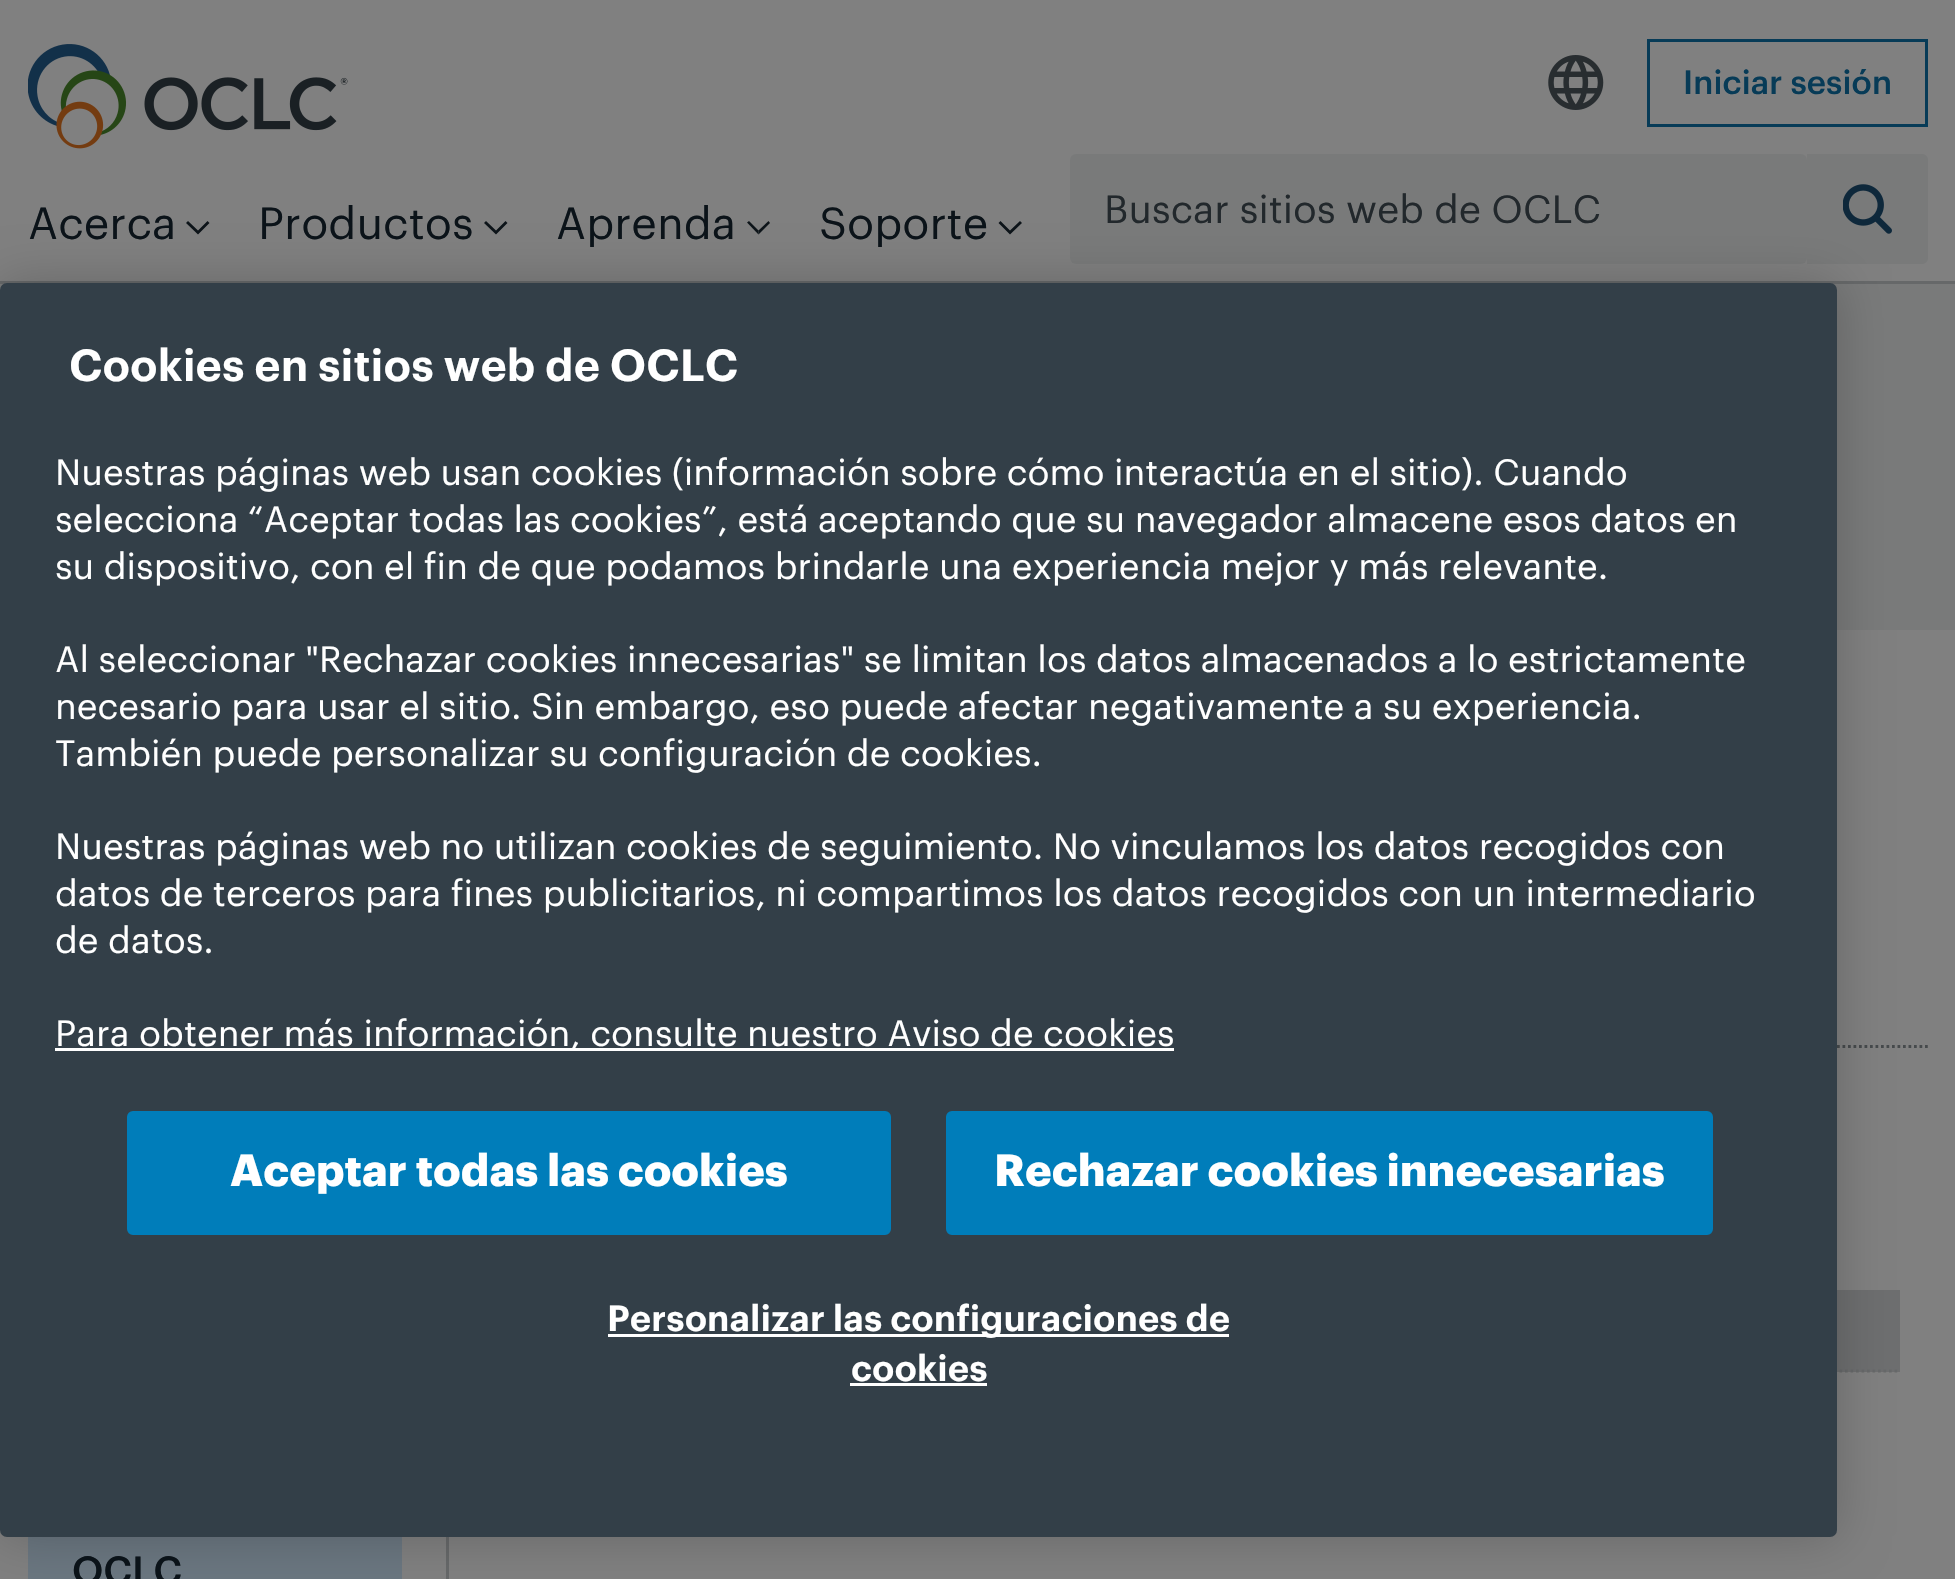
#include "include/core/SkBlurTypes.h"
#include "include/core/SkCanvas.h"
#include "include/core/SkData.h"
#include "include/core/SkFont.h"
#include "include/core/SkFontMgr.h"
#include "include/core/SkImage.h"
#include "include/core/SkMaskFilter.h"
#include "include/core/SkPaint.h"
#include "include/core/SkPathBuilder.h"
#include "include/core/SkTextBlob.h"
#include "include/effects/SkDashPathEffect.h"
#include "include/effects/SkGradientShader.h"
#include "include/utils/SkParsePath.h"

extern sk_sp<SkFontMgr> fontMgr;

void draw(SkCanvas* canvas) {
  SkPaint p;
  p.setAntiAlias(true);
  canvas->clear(SkColorSetRGB(128, 128, 128));
  p.setColor(SkColorSetRGB(102, 104, 105));
  canvas->drawRect(SkRect::MakeLTRB(0, 281, 1955, 284), p);
  canvas->drawImageRect(SkImages::DeferredFromEncodedData(SkData::MakeFromFileName("images/1.png")), SkRect::MakeLTRB(28, 44, 348, 149), SkSamplingOptions());
  canvas->drawImageRect(SkImages::DeferredFromEncodedData(SkData::MakeFromFileName("images/2.png")), SkRect::MakeLTRB(1548, 55, 1604, 110), SkSamplingOptions());
  p.setStyle(SkPaint::kStroke_Style);
  p.setStrokeWidth(3);
  p.setColor(SkColorSetRGB(7, 59, 87));
  canvas->drawRect(SkRect::MakeLTRB(1648.5f, 40.5f, 1926.5f, 125.5f), p);
  p.setStyle(SkPaint::kFill_Style);
  p.setColor(SkColorSetRGB(13, 20, 25));
  canvas->drawPath(SkPathBuilder().moveTo(209.5f, 223).lineTo(198, 234.5f).lineTo(198, 230.5f).lineTo(207.5f, 221).close().moveTo(198, 234.5f).lineTo(186, 223).lineTo(188, 221).lineTo(198, 230.5f).close().detach(), p);
  canvas->drawPath(SkPathBuilder().moveTo(507.5f, 223).lineTo(496, 234.5f).lineTo(496, 230.5f).lineTo(505.5f, 221).close().moveTo(496, 234.5f).lineTo(484, 223).lineTo(486, 221).lineTo(496, 230.5f).close().detach(), p);
  canvas->drawPath(SkPathBuilder().moveTo(770, 223).lineTo(758.5f, 234.5f).lineTo(758.5f, 230.5f).lineTo(768.5f, 221).close().detach(), p);
  p.setColor(SkColorSetARGB(230, 0, 8, 13));
  canvas->drawPath(SkPathBuilder().moveTo(758.5f, 234.5f).lineTo(747, 222.5f).lineTo(749, 221).lineTo(758.5f, 230.5f).close().detach(), p);
  p.setColor(SkColorSetRGB(13, 20, 25));
  canvas->drawPath(SkPathBuilder().moveTo(1022, 223).lineTo(1010, 234.5f).lineTo(1010, 230.5f).lineTo(1020, 221).close().moveTo(1010, 234.5f).lineTo(998.5f, 223).lineTo(1000.5f, 221).lineTo(1010, 230.5f).close().detach(), p);
  p.setColor(SkColorSetRGB(121, 122, 122));
  canvas->drawRoundRect(SkRect::MakeLTRB(1070, 154, 1807, 264), 6, 6, p);
  canvas->drawPath(SkPathBuilder().moveTo(1807, 154).lineTo(1922, 154).cubicTo(1925.5f, 154, 1928, 156.5f, 1928, 160).lineTo(1928, 258).cubicTo(1928, 261.5f, 1925.5f, 264, 1922, 264).lineTo(1807, 264).close().detach(), p);
  canvas->drawImageRect(SkImages::DeferredFromEncodedData(SkData::MakeFromFileName("images/3.png")), SkRect::MakeLTRB(1843, 184, 1892, 234), SkSamplingOptions());
  canvas->drawRect(SkRect::MakeLTRB(0, 284, 1955, 630), p);
  p.setStyle(SkPaint::kStroke_Style);
  p.setStrokeWidth(2.8f);
  p.setColor(SkColorSetRGB(70, 74, 76));
  p.setPathEffect(SkDashPathEffect::Make({{2.75f, 2.75f}}, 0));
  canvas->drawPath(SkPathBuilder().moveTo(27.5f, 1046.5f).lineTo(1928, 1046.5f).detach(), p);
  p.setPathEffect(nullptr);
  p.setStyle(SkPaint::kFill_Style);
  p.setColor(SkColorSetRGB(109, 110, 111));
  canvas->drawRect(SkRect::MakeLTRB(1837, 1290, 1900, 1372), p);
  p.setStyle(SkPaint::kStroke_Style);
  p.setColor(SkColorSetRGB(102, 104, 105));
  p.setPathEffect(SkDashPathEffect::Make({{2.75f, 2.75f}}, 0));
  canvas->drawPath(SkPathBuilder().moveTo(503, 1371).lineTo(1900, 1371).detach(), p);
  p.setPathEffect(nullptr);
  p.setStyle(SkPaint::kFill_Style);
  canvas->drawRect(SkRect::MakeLTRB(446, 1537, 449, 1579), p);
  p.setColor(SkColorSetRGB(106, 118, 128));
  canvas->drawRect(SkRect::MakeLTRB(28, 1537, 402, 1579), p);
  p.setColor(SkColorSetARGB(51, 0, 0, 0));
  p.setMaskFilter(SkMaskFilter::MakeBlur(kNormal_SkBlurStyle, 25));
  canvas->drawRoundRect(SkRect::MakeLTRB(0, 283, 1837, 1537), 7, 7, p);
  p.setMaskFilter(nullptr);
  p.setColor(SkColorSetRGB(51, 63, 72));
  canvas->drawRoundRect(SkRect::MakeLTRB(0, 283, 1837, 1537), 7, 7, p);
  p.setColor(SK_ColorWHITE);
  canvas->drawRect(SkRect::MakeLTRB(55, 1048, 1174, 1051), p);
  p.setColor(SkColorSetRGB(0, 125, 186));
  canvas->drawRoundRect(SkRect::MakeLTRB(128.5f, 1112.5f, 889.5f, 1233.5f), 4.5f, 4.5f, p);
  p.setStyle(SkPaint::kStroke_Style);
  p.setStrokeWidth(3);
  canvas->drawRoundRect(SkRect::MakeLTRB(128.5f, 1112.5f, 889.5f, 1233.5f), 4.5f, 4.5f, p);
  p.setStyle(SkPaint::kFill_Style);
  canvas->drawRoundRect(SkRect::MakeLTRB(947.5f, 1112.5f, 1711.5f, 1233.5f), 4.5f, 4.5f, p);
  p.setStyle(SkPaint::kStroke_Style);
  canvas->drawRoundRect(SkRect::MakeLTRB(947.5f, 1112.5f, 1711.5f, 1233.5f), 4.5f, 4.5f, p);
  p.setStyle(SkPaint::kFill_Style);
  p.setColor(SK_ColorWHITE);
  canvas->drawRect(SkRect::MakeLTRB(608, 1334, 1229, 1337), p);
  canvas->drawRect(SkRect::MakeLTRB(850, 1383, 987, 1386), p);
  SkFont font1(fontMgr->matchFamilyStyle("Graphik", SkFontStyle(500, SkFontStyle::kNormal_Width, SkFontStyle::kUpright_Slant)), 33);
  font1.setSubpixel(true);
  p.setColor(SkColorSetRGB(7, 59, 87));
  canvas->drawString("Iniciar sesión", 1683, 94, font1, p);
  SkFont font2(fontMgr->matchFamilyStyle("Graphik", SkFontStyle::Normal()), 44);
  font2.setSubpixel(true);
  p.setColor(SkColorSetRGB(11, 19, 25));
  canvas->drawString("Acerca", 28, 239, font2, p);
  canvas->drawString("Productos", 258, 239, font2, p);
  canvas->drawString("Aprenda", 556, 239, font2, p);
  canvas->drawString("Soporte", 819, 239, font2, p);
  SkFont font3(fontMgr->matchFamilyStyle("Graphik", SkFontStyle::Normal()), 38.5f);
  font3.setSubpixel(true);
  p.setColor(SkColorSetRGB(34, 40, 44));
  canvas->drawString("Buscar sitios web de OCLC", 1104, 223, font3, p);
  SkFont font4(fontMgr->matchFamilyStyle("Graphik", SkFontStyle(500, SkFontStyle::kNormal_Width, SkFontStyle::kUpright_Slant)), 38.5f);
  font4.setSubpixel(true);
  p.setColor(SkColorSetRGB(11, 19, 25));
  canvas->drawString("OCLC", 72, 1584, font4, p);
  SkFont font5(fontMgr->matchFamilyStyle("Graphik", SkFontStyle(600, SkFontStyle::kNormal_Width, SkFontStyle::kUpright_Slant)), 44);
  font5.setSubpixel(true);
  p.setColor(SK_ColorWHITE);
  canvas->drawString("Cookies en sitios web de OCLC", 69, 381, font5, p);
  SkFont font6(fontMgr->matchFamilyStyle("Graphik", SkFontStyle::Normal()), 35.75f);
  font6.setSubpixel(true);
  canvas->drawString("Nuestras páginas web usan cookies (información sobre cómo interactúa en el sitio). Cuando", 55, 485, font6, p);
  canvas->drawString("selecciona “Aceptar todas las cookies”, está aceptando que su navegador almacene esos datos en", 55, 532, font6, p);
  canvas->drawString("su dispositivo, con el fin de que podamos brindarle una experiencia mejor y más relevante.", 55, 579, font6, p);
  canvas->drawString("Al seleccionar \"Rechazar cookies innecesarias\" se limitan los datos almacenados a lo estrictamente", 55, 672, font6, p);
  canvas->drawString("necesario para usar el sitio. Sin embargo, eso puede afectar negativamente a su experiencia.", 55, 719, font6, p);
  canvas->drawString("También puede personalizar su configuración de cookies.", 55, 766, font6, p);
  canvas->drawString("Nuestras páginas web no utilizan cookies de seguimiento. No vinculamos los datos recogidos con", 55, 859, font6, p);
  canvas->drawString("datos de terceros para fines publicitarios, ni compartimos los datos recogidos con un intermediario", 55, 906, font6, p);
  canvas->drawString("de datos.", 55, 953, font6, p);
  canvas->drawString("Para obtener más información, consulte nuestro Aviso de cookies", 55, 1046, font6, p);
  SkFont font7(fontMgr->matchFamilyStyle("Graphik", SkFontStyle::Bold()), 44);
  font7.setSubpixel(true);
  canvas->drawString("Aceptar todas las cookies", 230, 1186, font7, p);
  canvas->drawString("Rechazar cookies innecesarias", 994, 1186, font7, p);
  SkFont font8(fontMgr->matchFamilyStyle("Graphik", SkFontStyle(600, SkFontStyle::kNormal_Width, SkFontStyle::kUpright_Slant)), 35.75f);
  font8.setSubpixel(true);
  canvas->drawString("Personalizar las configuraciones de", 607, 1331, font8, p);
  canvas->drawString("cookies", 851, 1381, font8, p);
}
